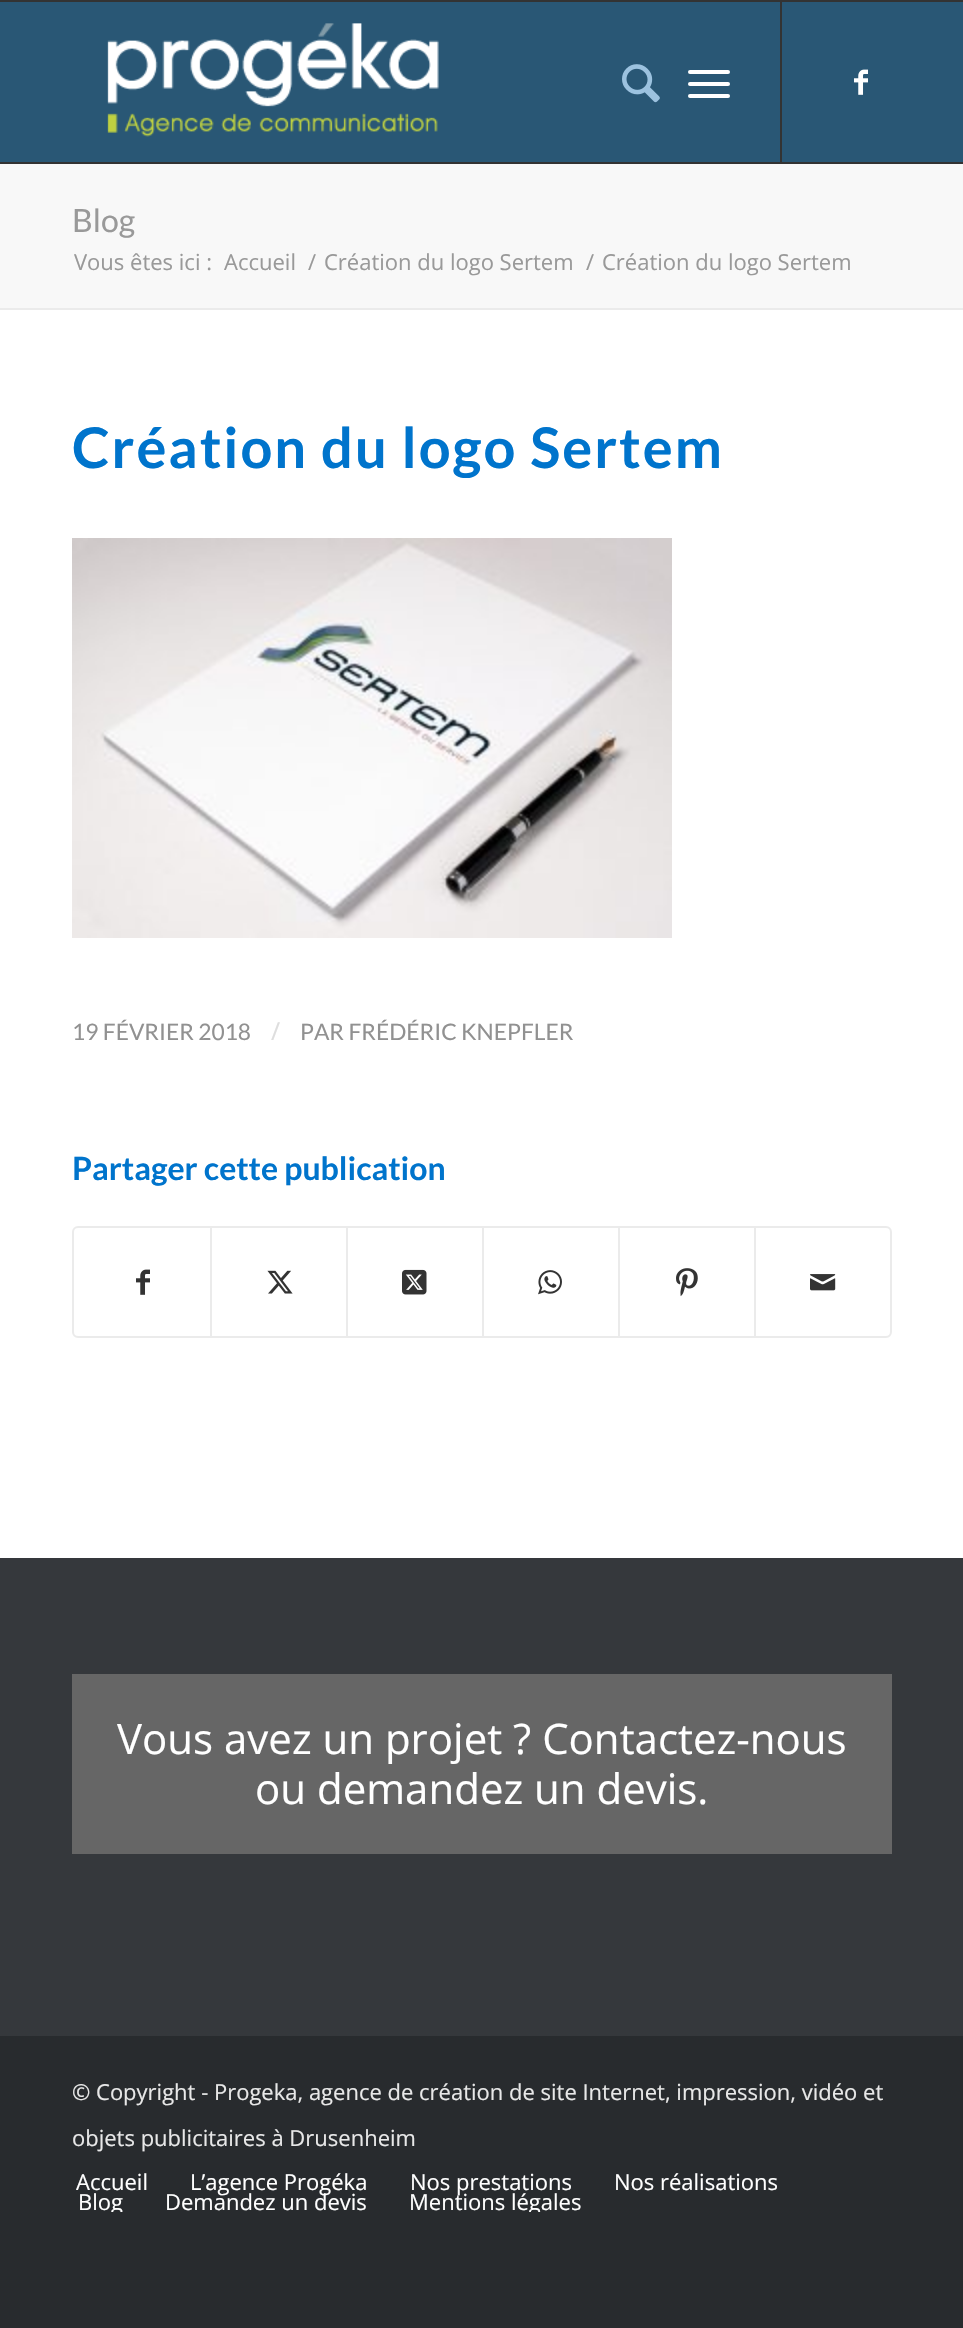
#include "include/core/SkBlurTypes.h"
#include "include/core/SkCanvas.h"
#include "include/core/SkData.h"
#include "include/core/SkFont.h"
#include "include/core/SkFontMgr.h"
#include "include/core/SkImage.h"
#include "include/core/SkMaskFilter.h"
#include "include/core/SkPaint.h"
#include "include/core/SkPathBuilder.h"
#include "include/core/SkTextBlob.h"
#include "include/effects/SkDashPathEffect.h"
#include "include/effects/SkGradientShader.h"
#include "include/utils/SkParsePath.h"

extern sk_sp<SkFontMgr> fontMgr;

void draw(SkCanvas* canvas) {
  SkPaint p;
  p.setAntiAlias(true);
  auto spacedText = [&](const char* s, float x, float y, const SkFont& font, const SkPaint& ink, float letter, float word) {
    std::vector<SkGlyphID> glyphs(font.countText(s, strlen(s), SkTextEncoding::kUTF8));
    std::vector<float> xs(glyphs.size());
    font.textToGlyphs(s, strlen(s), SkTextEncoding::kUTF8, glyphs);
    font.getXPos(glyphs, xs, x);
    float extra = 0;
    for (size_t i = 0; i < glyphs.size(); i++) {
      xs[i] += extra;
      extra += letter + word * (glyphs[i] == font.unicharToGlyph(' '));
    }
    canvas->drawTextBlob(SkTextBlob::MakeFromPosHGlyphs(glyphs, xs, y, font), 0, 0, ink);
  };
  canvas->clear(SkColorSetRGB(40, 43, 46));
  p.setColor(SkColorSetRGB(51, 51, 51));
  canvas->drawRect(SkRect::MakeLTRB(0, 0, 963, 2), p);
  canvas->drawRect(SkRect::MakeLTRB(0, 162, 963, 164), p);
  p.setColor(SkColorSetRGB(41, 87, 117));
  canvas->drawRect(SkRect::MakeLTRB(0, 2, 963, 162), p);
  canvas->drawImageRect(SkImages::DeferredFromEncodedData(SkData::MakeFromFileName("images/1.png")), SkRect::MakeLTRB(107, 23, 439, 137), SkSamplingOptions());
  p.setColor(SkColorSetRGB(51, 51, 51));
  canvas->drawRect(SkRect::MakeLTRB(780, 2, 782, 162), p);
  canvas->drawImageRect(SkImages::DeferredFromEncodedData(SkData::MakeFromFileName("images/2.png")), SkRect::MakeLTRB(622, 64, 660, 103), SkSamplingOptions());
  p.setColor(SK_ColorWHITE);
  canvas->drawRoundRect(SkRect::MakeLTRB(688, 82, 730, 86), 2, 2, p);
  canvas->drawRoundRect(SkRect::MakeLTRB(688, 70, 730, 74), 2, 2, p);
  canvas->drawRoundRect(SkRect::MakeLTRB(688, 94, 730, 98), 2, 2, p);
  canvas->drawImageRect(SkImages::DeferredFromEncodedData(SkData::MakeFromFileName("images/3.png")), SkRect::MakeLTRB(854, 69, 868, 95), SkSamplingOptions());
  p.setColor(SkColorSetRGB(248, 248, 248));
  canvas->drawRect(SkRect::MakeLTRB(0, 164, 963, 308), p);
  p.setColor(SK_ColorWHITE);
  canvas->drawRect(SkRect::MakeLTRB(0, 310, 963, 1558), p);
  p.setColor(SkColorSetRGB(235, 235, 235));
  canvas->drawRect(SkRect::MakeLTRB(0, 308, 963, 310), p);
  canvas->drawImageRect(SkImages::DeferredFromEncodedData(SkData::MakeFromFileName("images/4.png")), SkRect::MakeLTRB(72, 538, 672, 938), SkSamplingOptions());
  p.setStyle(SkPaint::kStroke_Style);
  p.setStrokeWidth(2);
  canvas->drawRoundRect(SkRect::MakeLTRB(73, 1227, 891, 1337), 5, 5, p);
  canvas->drawImageRect(SkImages::DeferredFromEncodedData(SkData::MakeFromFileName("images/5.png")), SkRect::MakeLTRB(136, 1269, 150, 1295), SkSamplingOptions());
  p.setStyle(SkPaint::kFill_Style);
  canvas->drawRect(SkRect::MakeLTRB(210, 1228, 212, 1336), p);
  canvas->drawImageRect(SkImages::DeferredFromEncodedData(SkData::MakeFromFileName("images/6.png")), SkRect::MakeLTRB(267, 1270, 293, 1294), SkSamplingOptions());
  canvas->drawRect(SkRect::MakeLTRB(346, 1228, 348, 1336), p);
  canvas->drawImageRect(SkImages::DeferredFromEncodedData(SkData::MakeFromFileName("images/7.png")), SkRect::MakeLTRB(402, 1269, 427, 1295), SkSamplingOptions());
  canvas->drawRect(SkRect::MakeLTRB(482, 1228, 484, 1336), p);
  canvas->drawImageRect(SkImages::DeferredFromEncodedData(SkData::MakeFromFileName("images/8.png")), SkRect::MakeLTRB(538, 1270, 562, 1295), SkSamplingOptions());
  canvas->drawRect(SkRect::MakeLTRB(618, 1228, 620, 1336), p);
  canvas->drawImageRect(SkImages::DeferredFromEncodedData(SkData::MakeFromFileName("images/9.png")), SkRect::MakeLTRB(676, 1268, 698, 1297), SkSamplingOptions());
  canvas->drawRect(SkRect::MakeLTRB(754, 1228, 756, 1336), p);
  canvas->drawImageRect(SkImages::DeferredFromEncodedData(SkData::MakeFromFileName("images/10.png")), SkRect::MakeLTRB(810, 1274, 836, 1291), SkSamplingOptions());
  p.setColor(SkColorSetRGB(53, 56, 60));
  canvas->drawRect(SkRect::MakeLTRB(0, 1558, 963, 2036), p);
  p.setColor(SkColorSetRGB(102, 102, 102));
  canvas->drawRect(SkRect::MakeLTRB(72, 1674, 892, 1854), p);
  SkFont font1(fontMgr->matchFamilyStyle("Lato", SkFontStyle::Normal()), 32);
  font1.setSubpixel(true);
  p.setColor(SkColorSetRGB(153, 153, 153));
  canvas->drawString("Blog", 72, 232, font1, p);
  SkFont font2(fontMgr->matchFamilyStyle("Open Sans", SkFontStyle::Normal()), 22);
  font2.setSubpixel(true);
  canvas->drawString("Vous êtes ici :", 74, 270, font2, p);
  canvas->drawString("Accueil", 224, 270, font2, p);
  canvas->drawString("/", 308, 270, font2, p);
  canvas->drawString("Création du logo Sertem", 324, 270, font2, p);
  canvas->drawString("/", 586, 270, font2, p);
  canvas->drawString("Création du logo Sertem", 602, 270, font2, p);
  SkFont font3(fontMgr->matchFamilyStyle("Lato", SkFontStyle::Bold()), 56);
  font3.setSubpixel(true);
  p.setColor(SkColorSetRGB(0, 116, 204));
  spacedText("Création du logo Sertem", 72, 468, font3, p, 2, 0);
  SkFont font4(fontMgr->matchFamilyStyle("Lato", SkFontStyle::Normal()), 22.75f);
  font4.setSubpixel(true);
  p.setColor(SkColorSetRGB(145, 145, 145));
  canvas->drawString("19 FÉVRIER 2018", 72, 1040, font4, p);
  SkFont font5(fontMgr->matchFamilyStyle("Open Sans", SkFontStyle::Normal()), 25);
  font5.setSubpixel(true);
  p.setColor(SkColorSetRGB(222, 222, 222));
  canvas->drawString("/", 271, 1040, font5, p);
  p.setColor(SkColorSetRGB(145, 145, 145));
  canvas->drawString("PAR FRÉDÉRIC KNEPFLER", 300, 1040, font4, p);
  SkFont font6(fontMgr->matchFamilyStyle("Lato", SkFontStyle::Bold()), 32);
  font6.setSubpixel(true);
  p.setColor(SkColorSetRGB(0, 116, 204));
  canvas->drawString("Partager cette publication", 72, 1180, font6, p);
  SkFont font7(fontMgr->matchFamilyStyle("Open Sans", SkFontStyle::Normal()), 42);
  font7.setSubpixel(true);
  p.setColor(SK_ColorWHITE);
  canvas->drawString("Vous avez un projet ? Contactez-nous", 117, 1754, font7, p);
  canvas->drawString("ou demandez un devis.", 255, 1804, font7, p);
  p.setColor(SkColorSetRGB(232, 232, 232));
  canvas->drawString("© Copyright - Progeka, agence de création de site Internet, impression, vidéo et", 72, 2100, font2, p);
  canvas->drawString("objets publicitaires à Drusenheim", 72, 2146, font2, p);
  p.setColor(SK_ColorWHITE);
  canvas->drawString("Accueil", 76, 2190, font2, p);
  canvas->drawString("L’agence Progéka", 190, 2190, font2, p);
  canvas->drawString("Nos prestations", 410, 2190, font2, p);
  canvas->drawString("Nos réalisations", 614, 2190, font2, p);
  canvas->save();
  canvas->clipRect(SkRect::MakeLTRB(42, 2160, 862, 2212));
  canvas->drawString("Blog", 78, 2210, font2, p);
  canvas->restore();
  canvas->drawString("Demandez un devis", 165, 2210, font2, p);
  canvas->save();
  canvas->clipRect(SkRect::MakeLTRB(42, 2160, 862, 2212));
  canvas->drawString("Mentions légales", 409, 2210, font2, p);
  canvas->restore();
}
